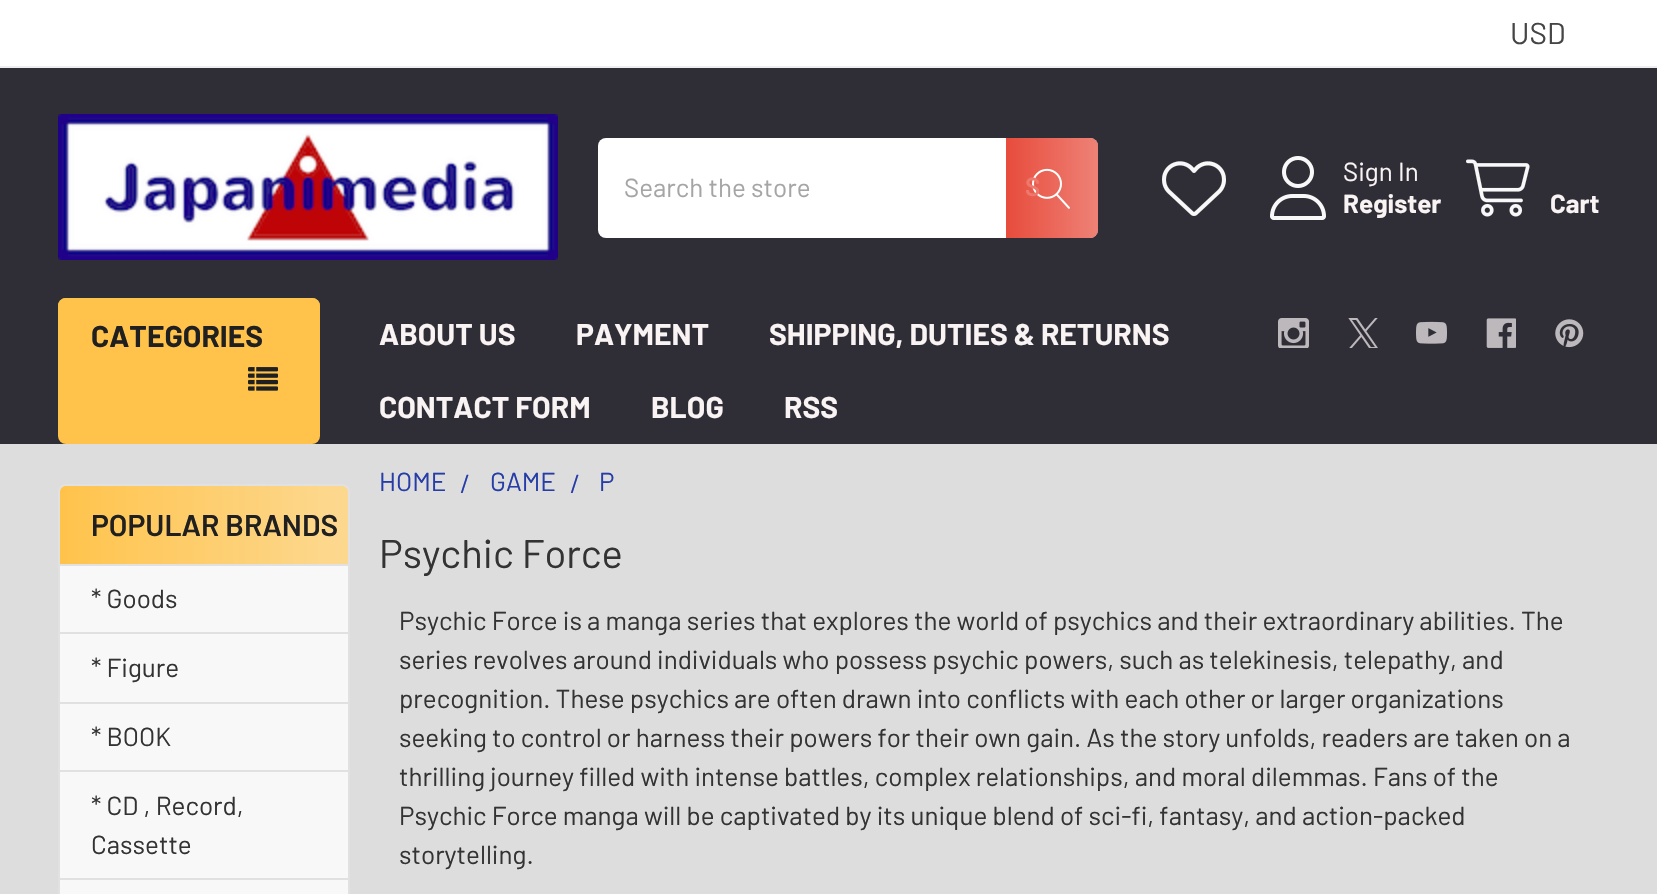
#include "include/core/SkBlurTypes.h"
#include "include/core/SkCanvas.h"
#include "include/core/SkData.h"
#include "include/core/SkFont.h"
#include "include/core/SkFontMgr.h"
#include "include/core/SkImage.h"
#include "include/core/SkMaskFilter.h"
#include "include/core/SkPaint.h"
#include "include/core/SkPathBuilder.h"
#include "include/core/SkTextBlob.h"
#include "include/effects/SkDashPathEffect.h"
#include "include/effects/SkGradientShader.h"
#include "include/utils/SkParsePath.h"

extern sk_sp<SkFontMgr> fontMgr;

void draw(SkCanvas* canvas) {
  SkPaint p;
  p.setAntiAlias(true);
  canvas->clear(SkColorSetRGB(221, 221, 221));
  p.setColor(SkColorSetRGB(47, 45, 54));
  canvas->drawRect(SkRect::MakeLTRB(0, 68, 1657, 444), p);
  p.setColor(SK_ColorWHITE);
  canvas->drawRect(SkRect::MakeLTRB(0, 0, 1657, 66), p);
  p.setColor(SkColorSetRGB(238, 238, 238));
  canvas->drawRect(SkRect::MakeLTRB(0, 66, 1657, 68), p);
  canvas->drawImageRect(SkImages::DeferredFromEncodedData(SkData::MakeFromFileName("images/1.png")), SkRect::MakeLTRB(58, 114, 558, 260), SkSamplingOptions());
  p.setColor(SK_ColorWHITE);
  canvas->drawRoundRect(SkRect::MakeLTRB(598, 138, 1098, 238), 8, 8, p);
  {
    const SkColor colors[] = {SkColorSetRGB(231, 76, 60), SkColorSetARGB(179, 231, 76, 60)};
    const float stops[] = {0, 1};
    const SkPoint ends[] = {{1006, 188}, {1098, 188}};
    p.setShader(SkGradientShader::MakeLinear(ends, colors, stops, 2, SkTileMode::kClamp));
    p.setAlpha(255);
  }
  canvas->drawPath(SkPathBuilder().moveTo(1006, 138).lineTo(1090, 138).cubicTo(1094.5f, 138, 1098, 141.5f, 1098, 146).lineTo(1098, 230).cubicTo(1098, 234.5f, 1094.5f, 238, 1090, 238).lineTo(1006, 238).close().detach(), p);
  canvas->drawImageRect(SkImages::DeferredFromEncodedData(SkData::MakeFromFileName("images/2.png")), SkRect::MakeLTRB(1032, 168, 1070, 209), SkSamplingOptions());
  canvas->drawImageRect(SkImages::DeferredFromEncodedData(SkData::MakeFromFileName("images/3.png")), SkRect::MakeLTRB(1162, 161, 1226, 216), SkSamplingOptions());
  canvas->drawImageRect(SkImages::DeferredFromEncodedData(SkData::MakeFromFileName("images/4.png")), SkRect::MakeLTRB(1270, 156, 1326, 220), SkSamplingOptions());
  canvas->drawImageRect(SkImages::DeferredFromEncodedData(SkData::MakeFromFileName("images/5.png")), SkRect::MakeLTRB(1466, 159, 1530, 217), SkSamplingOptions());
  p.setShader(nullptr);
  p.setColor(SkColorSetRGB(255, 195, 75));
  canvas->drawRoundRect(SkRect::MakeLTRB(58, 298, 320, 444), 8, 8, p);
  p.setStyle(SkPaint::kStroke_Style);
  p.setStrokeWidth(2);
  canvas->drawPath(SkPathBuilder().moveTo(66, 299).lineTo(312, 299).cubicTo(316, 299, 319, 302, 319, 306).lineTo(319, 419).lineTo(59, 419).lineTo(59, 306).cubicTo(59, 302, 62, 299, 66, 299).close().detach(), p);
  canvas->drawImageRect(SkImages::DeferredFromEncodedData(SkData::MakeFromFileName("images/6.png")), SkRect::MakeLTRB(248, 367, 278, 391), SkSamplingOptions());
  canvas->drawImageRect(SkImages::DeferredFromEncodedData(SkData::MakeFromFileName("images/7.png")), SkRect::MakeLTRB(1278, 318, 1309, 348), SkSamplingOptions());
  canvas->drawImageRect(SkImages::DeferredFromEncodedData(SkData::MakeFromFileName("images/8.png")), SkRect::MakeLTRB(1348, 318, 1378, 348), SkSamplingOptions());
  canvas->drawImageRect(SkImages::DeferredFromEncodedData(SkData::MakeFromFileName("images/9.png")), SkRect::MakeLTRB(1416, 321, 1447, 344), SkSamplingOptions());
  canvas->drawImageRect(SkImages::DeferredFromEncodedData(SkData::MakeFromFileName("images/10.png")), SkRect::MakeLTRB(1486, 318, 1516, 348), SkSamplingOptions());
  canvas->drawImageRect(SkImages::DeferredFromEncodedData(SkData::MakeFromFileName("images/11.png")), SkRect::MakeLTRB(1555, 319, 1584, 348), SkSamplingOptions());
  p.setStyle(SkPaint::kFill_Style);
  p.setColor(SkColorSetRGB(248, 248, 248));
  canvas->drawRoundRect(SkRect::MakeLTRB(59, 485, 349, 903), 7, 7, p);
  p.setStyle(SkPaint::kStroke_Style);
  p.setColor(SkColorSetRGB(225, 225, 225));
  canvas->drawRoundRect(SkRect::MakeLTRB(59, 485, 349, 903), 7, 7, p);
  p.setStyle(SkPaint::kFill_Style);
  {
    const SkColor colors[] = {SkColorSetRGB(255, 195, 75), SkColorSetARGB(153, 255, 195, 75)};
    const float stops[] = {0, 1};
    const SkPoint ends[] = {{60, 525}, {348, 525}};
    p.setShader(SkGradientShader::MakeLinear(ends, colors, stops, 2, SkTileMode::kClamp));
    p.setAlpha(255);
  }
  canvas->drawPath(SkPathBuilder().moveTo(66, 486).lineTo(342, 486).cubicTo(345.5f, 486, 348, 488.5f, 348, 492).lineTo(348, 566).lineTo(60, 566).lineTo(60, 492).cubicTo(60, 488.5f, 62.5f, 486, 66, 486).close().detach(), p);
  p.setShader(nullptr);
  p.setColor(SkColorSetRGB(225, 225, 225));
  canvas->drawRect(SkRect::MakeLTRB(60, 564, 348, 566), p);
  canvas->drawRect(SkRect::MakeLTRB(60, 632, 348, 634), p);
  canvas->drawRect(SkRect::MakeLTRB(60, 702, 348, 704), p);
  canvas->drawRect(SkRect::MakeLTRB(60, 770, 348, 772), p);
  canvas->drawRect(SkRect::MakeLTRB(60, 878, 348, 880), p);
  SkFont font1(fontMgr->matchFamilyStyle("Barlow", SkFontStyle::Normal()), 30);
  font1.setSubpixel(true);
  p.setColor(SkColorSetRGB(69, 69, 69));
  canvas->drawString("USD", 1510, 44, font1, p);
  SkFont font2(fontMgr->matchFamilyStyle("Barlow", SkFontStyle::Normal()), 26);
  font2.setSubpixel(true);
  p.setColor(SkColorSetRGB(165, 165, 165));
  canvas->drawString("Search the store", 624, 197, font2, p);
  SkFont font3(fontMgr->matchFamilyStyle("Barlow", SkFontStyle(600, SkFontStyle::kNormal_Width, SkFontStyle::kUpright_Slant)), 26);
  font3.setSubpixel(true);
  p.setColor(SkColorSetRGB(237, 120, 108));
  canvas->drawString("S", 1025, 196, font3, p);
  p.setColor(SkColorSetRGB(249, 243, 243));
  canvas->drawString("Sign In", 1343, 181, font2, p);
  SkFont font4(fontMgr->matchFamilyStyle("Barlow", SkFontStyle::Bold()), 26);
  font4.setSubpixel(true);
  canvas->drawString("Register", 1343, 213, font4, p);
  canvas->drawString("Cart", 1550, 213, font4, p);
  SkFont font5(fontMgr->matchFamilyStyle("Barlow", SkFontStyle::Bold()), 30);
  font5.setSubpixel(true);
  p.setColor(SkColorSetRGB(32, 32, 32));
  canvas->drawString("CATEGORIES", 91, 347, font5, p);
  p.setColor(SkColorSetRGB(249, 243, 243));
  canvas->drawString("ABOUT US", 379, 345, font5, p);
  canvas->drawString("PAYMENT", 576, 345, font5, p);
  canvas->drawString("SHIPPING, DUTIES & RETURNS", 769, 345, font5, p);
  canvas->drawString("CONTACT FORM", 379, 418, font5, p);
  canvas->drawString("BLOG", 651, 418, font5, p);
  canvas->drawString("RSS", 784, 418, font5, p);
  SkFont font6(fontMgr->matchFamilyStyle("Barlow", SkFontStyle(600, SkFontStyle::kNormal_Width, SkFontStyle::kUpright_Slant)), 30);
  font6.setSubpixel(true);
  p.setColor(SkColorSetRGB(32, 32, 32));
  canvas->drawString("POPULAR BRANDS", 91, 536, font6, p);
  p.setColor(SkColorSetRGB(51, 51, 51));
  canvas->drawString("* Goods", 91, 608, font2, p);
  canvas->drawString("* Figure", 91, 677, font2, p);
  canvas->drawString("* BOOK", 91, 746, font2, p);
  canvas->drawString("* CD , Record,", 91, 815, font2, p);
  canvas->drawString("Cassette", 91, 854, font2, p);
  p.setColor(SkColorSetRGB(38, 61, 168));
  canvas->drawString("HOME", 379, 491, font2, p);
  canvas->drawString("/", 460, 493, font2, p);
  canvas->drawString("GAME", 490, 491, font2, p);
  canvas->drawString("/", 570, 493, font2, p);
  canvas->drawString("P", 599, 491, font2, p);
  SkFont font7(fontMgr->matchFamilyStyle("Barlow", SkFontStyle::Normal()), 40);
  font7.setSubpixel(true);
  p.setColor(SkColorSetRGB(51, 51, 51));
  canvas->drawString("Psychic Force", 379, 568, font7, p);
  canvas->drawString("Psychic Force is a manga series that explores the world of psychics and their extraordinary abilities. The", 399, 630, font2, p);
  canvas->drawString("series revolves around individuals who possess psychic powers, such as telekinesis, telepathy, and", 399, 669, font2, p);
  canvas->drawString("precognition. These psychics are often drawn into conflicts with each other or larger organizations", 399, 708, font2, p);
  canvas->drawString("seeking to control or harness their powers for their own gain. As the story unfolds, readers are taken on a", 399, 747, font2, p);
  canvas->drawString("thrilling journey filled with intense battles, complex relationships, and moral dilemmas. Fans of the", 399, 786, font2, p);
  canvas->drawString("Psychic Force manga will be captivated by its unique blend of sci-fi, fantasy, and action-packed", 399, 825, font2, p);
  canvas->drawString("storytelling.", 399, 864, font2, p);
}
